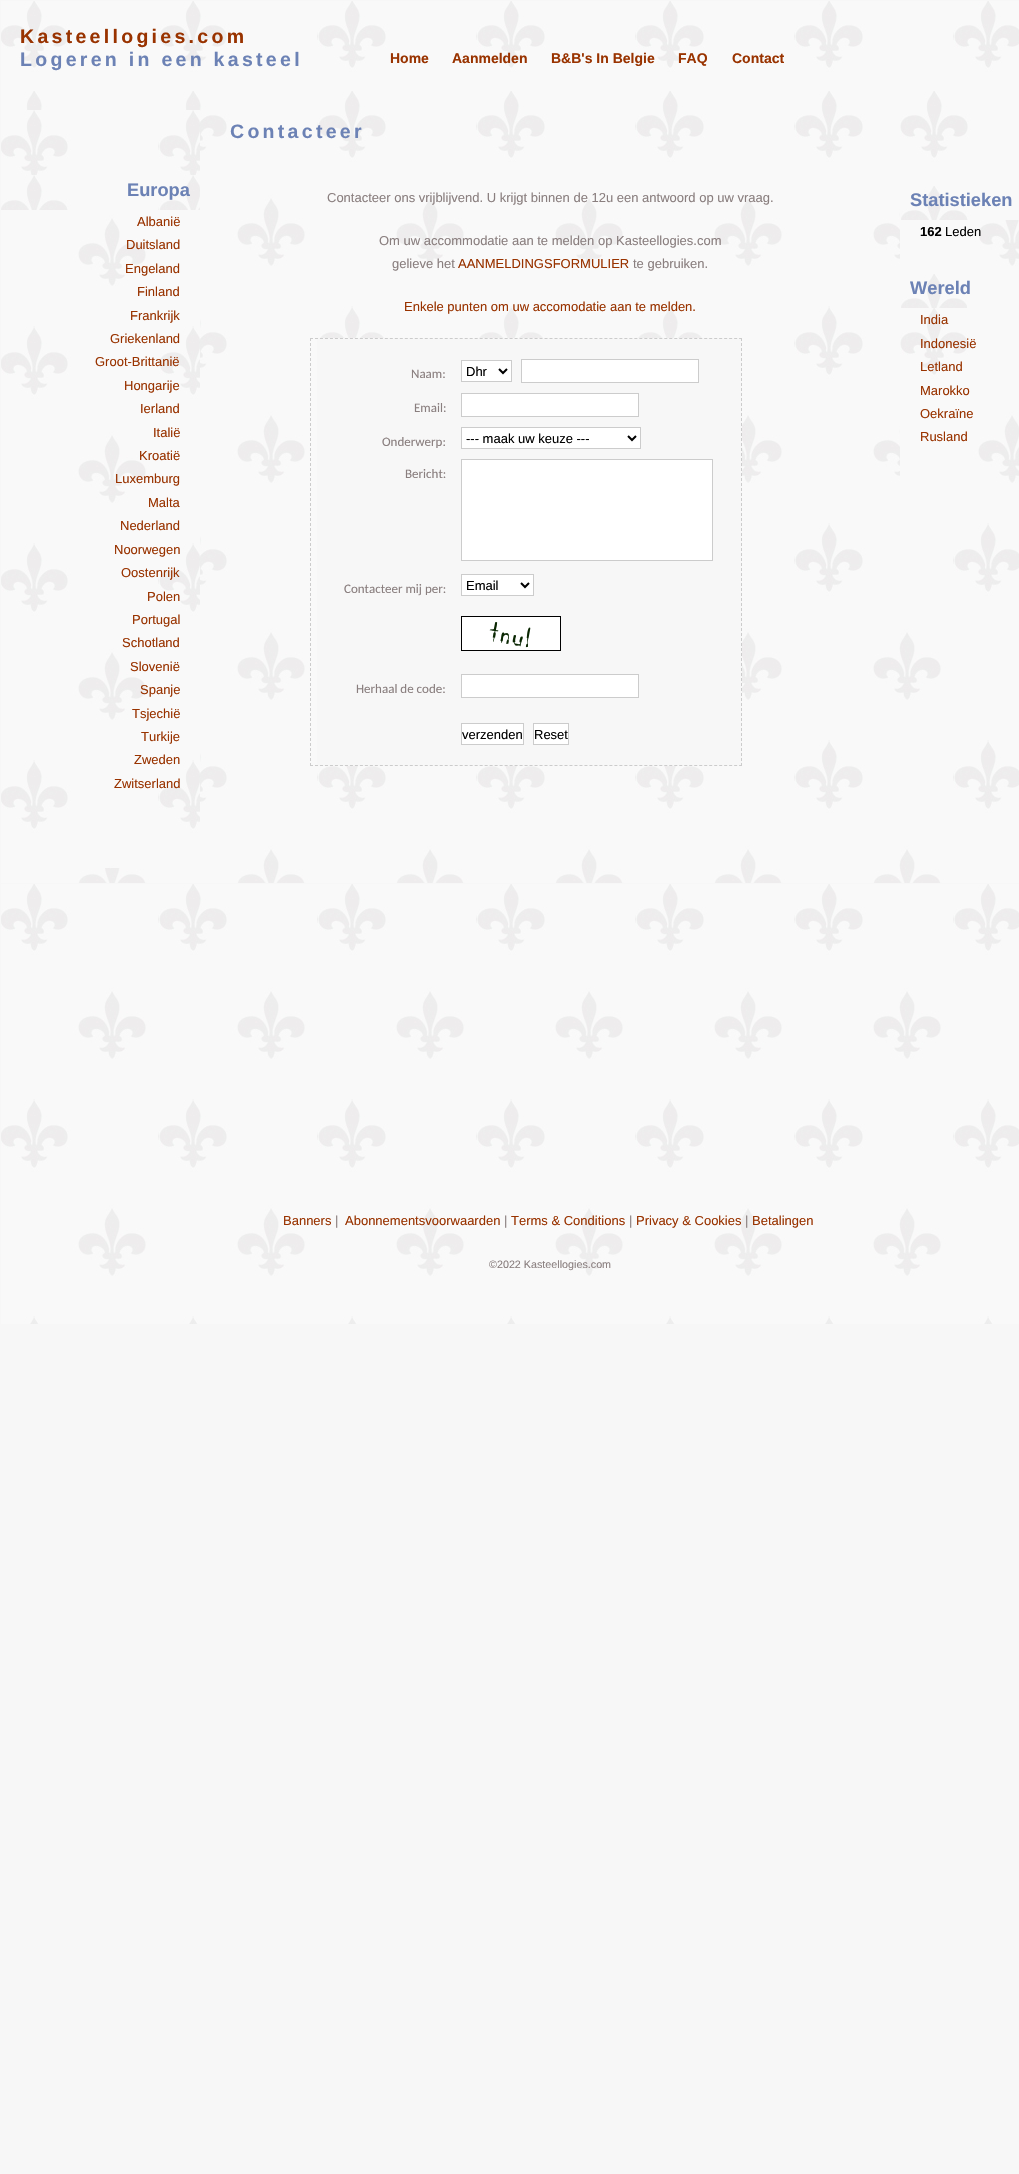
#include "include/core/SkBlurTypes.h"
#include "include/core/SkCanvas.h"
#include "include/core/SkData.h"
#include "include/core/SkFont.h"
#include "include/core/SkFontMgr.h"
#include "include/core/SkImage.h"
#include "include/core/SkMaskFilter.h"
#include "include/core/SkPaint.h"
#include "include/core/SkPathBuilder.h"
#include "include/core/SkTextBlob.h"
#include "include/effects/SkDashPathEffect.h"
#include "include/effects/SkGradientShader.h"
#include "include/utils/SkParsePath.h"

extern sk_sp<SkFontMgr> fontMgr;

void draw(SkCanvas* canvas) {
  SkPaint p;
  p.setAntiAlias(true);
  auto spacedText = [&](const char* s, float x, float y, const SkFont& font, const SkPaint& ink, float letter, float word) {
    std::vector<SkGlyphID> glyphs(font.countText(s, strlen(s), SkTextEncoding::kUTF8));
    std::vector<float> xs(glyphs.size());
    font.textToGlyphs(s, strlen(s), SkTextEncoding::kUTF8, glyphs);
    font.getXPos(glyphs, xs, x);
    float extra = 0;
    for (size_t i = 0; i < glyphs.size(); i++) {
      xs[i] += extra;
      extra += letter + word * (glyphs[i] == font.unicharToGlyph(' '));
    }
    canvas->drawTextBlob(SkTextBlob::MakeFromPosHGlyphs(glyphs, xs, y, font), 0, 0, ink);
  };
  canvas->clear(SkColorSetRGB(247, 247, 247));
  canvas->drawImageRect(SkImages::DeferredFromEncodedData(SkData::MakeFromFileName("images/1.png")), SkRect::MakeLTRB(1, 1, 1019, 91), SkSamplingOptions());
  canvas->drawImageRect(SkImages::DeferredFromEncodedData(SkData::MakeFromFileName("images/2.png")), SkRect::MakeLTRB(1, 91, 1019, 883), SkSamplingOptions());
  canvas->drawImageRect(SkImages::DeferredFromEncodedData(SkData::MakeFromFileName("images/3.png")), SkRect::MakeLTRB(1, 110, 200, 868), SkSamplingOptions());
  canvas->drawImageRect(SkImages::DeferredFromEncodedData(SkData::MakeFromFileName("images/4.png")), SkRect::MakeLTRB(1, 175, 200, 210), SkSamplingOptions());
  p.setColor(SkColorSetRGB(247, 247, 247));
  canvas->drawRect(SkRect::MakeLTRB(317, 338, 742, 766), p);
  p.setStyle(SkPaint::kStroke_Style);
  p.setStrokeWidth(1);
  p.setColor(SkColorSetRGB(204, 204, 204));
  p.setPathEffect(SkDashPathEffect::Make({{3, 1.99f}}, 0));
  canvas->drawPath(SkPathBuilder().moveTo(310, 338.5f).lineTo(742, 338.5f).detach(), p);
  p.setPathEffect(nullptr);
  p.setPathEffect(SkDashPathEffect::Make({{3, 2}}, 0));
  canvas->drawPath(SkPathBuilder().moveTo(741.5f, 338).lineTo(741.5f, 766).detach(), p);
  p.setPathEffect(nullptr);
  p.setPathEffect(SkDashPathEffect::Make({{3, 1.99f}}, 0));
  canvas->drawPath(SkPathBuilder().moveTo(310, 765.5f).lineTo(742, 765.5f).detach(), p);
  p.setPathEffect(nullptr);
  p.setPathEffect(SkDashPathEffect::Make({{3, 2}}, 0));
  canvas->drawPath(SkPathBuilder().moveTo(310.5f, 338).lineTo(310.5f, 766).detach(), p);
  p.setPathEffect(nullptr);
  p.setStyle(SkPaint::kFill_Style);
  p.setColor(SK_ColorWHITE);
  canvas->drawRect(SkRect::MakeLTRB(461.5f, 360.5f, 511.5f, 381.5f), p);
  p.setStyle(SkPaint::kStroke_Style);
  p.setColor(SkColorSetRGB(204, 204, 204));
  canvas->drawRect(SkRect::MakeLTRB(461.5f, 360.5f, 511.5f, 381.5f), p);
  p.setStrokeWidth(2);
  p.setColor(SK_ColorBLACK);
  canvas->drawPath(SkPathBuilder().moveTo(499, 369).lineTo(503, 373).lineTo(507, 369).detach(), p);
  p.setStyle(SkPaint::kFill_Style);
  p.setColor(SK_ColorWHITE);
  canvas->drawRect(SkRect::MakeLTRB(521.5f, 359.5f, 698.5f, 382.5f), p);
  p.setStyle(SkPaint::kStroke_Style);
  p.setStrokeWidth(1);
  p.setColor(SkColorSetRGB(204, 204, 204));
  canvas->drawRect(SkRect::MakeLTRB(521.5f, 359.5f, 698.5f, 382.5f), p);
  p.setStyle(SkPaint::kFill_Style);
  p.setColor(SK_ColorWHITE);
  canvas->drawRect(SkRect::MakeLTRB(461.5f, 393.5f, 638.5f, 416.5f), p);
  p.setStyle(SkPaint::kStroke_Style);
  p.setColor(SkColorSetRGB(204, 204, 204));
  canvas->drawRect(SkRect::MakeLTRB(461.5f, 393.5f, 638.5f, 416.5f), p);
  p.setStyle(SkPaint::kFill_Style);
  p.setColor(SK_ColorWHITE);
  canvas->drawRect(SkRect::MakeLTRB(461.5f, 427.5f, 640.5f, 448.5f), p);
  p.setStyle(SkPaint::kStroke_Style);
  p.setColor(SkColorSetRGB(204, 204, 204));
  canvas->drawRect(SkRect::MakeLTRB(461.5f, 427.5f, 640.5f, 448.5f), p);
  p.setStrokeWidth(2);
  p.setColor(SK_ColorBLACK);
  canvas->drawPath(SkPathBuilder().moveTo(628, 436).lineTo(632, 440).lineTo(636, 436).detach(), p);
  p.setStyle(SkPaint::kFill_Style);
  p.setColor(SK_ColorWHITE);
  canvas->drawRect(SkRect::MakeLTRB(461.5f, 459.5f, 712.5f, 560.5f), p);
  p.setStyle(SkPaint::kStroke_Style);
  p.setStrokeWidth(1);
  p.setColor(SkColorSetRGB(204, 204, 204));
  canvas->drawRect(SkRect::MakeLTRB(461.5f, 459.5f, 712.5f, 560.5f), p);
  p.setStyle(SkPaint::kFill_Style);
  p.setColor(SK_ColorWHITE);
  canvas->drawRect(SkRect::MakeLTRB(461.5f, 574.5f, 533.5f, 595.5f), p);
  p.setStyle(SkPaint::kStroke_Style);
  p.setColor(SkColorSetRGB(204, 204, 204));
  canvas->drawRect(SkRect::MakeLTRB(461.5f, 574.5f, 533.5f, 595.5f), p);
  p.setStrokeWidth(2);
  p.setColor(SK_ColorBLACK);
  canvas->drawPath(SkPathBuilder().moveTo(521, 583).lineTo(525, 587).lineTo(529, 583).detach(), p);
  canvas->drawImageRect(SkImages::DeferredFromEncodedData(SkData::MakeFromFileName("images/5.png")), SkRect::MakeLTRB(461, 616, 561, 651), SkSamplingOptions());
  p.setStyle(SkPaint::kFill_Style);
  p.setColor(SK_ColorWHITE);
  canvas->drawRect(SkRect::MakeLTRB(461.5f, 674.5f, 638.5f, 697.5f), p);
  p.setStyle(SkPaint::kStroke_Style);
  p.setStrokeWidth(1);
  p.setColor(SkColorSetRGB(204, 204, 204));
  canvas->drawRect(SkRect::MakeLTRB(461.5f, 674.5f, 638.5f, 697.5f), p);
  p.setStyle(SkPaint::kFill_Style);
  p.setColor(SK_ColorWHITE);
  canvas->drawRect(SkRect::MakeLTRB(461.5f, 723.5f, 523.5f, 744.5f), p);
  p.setStyle(SkPaint::kStroke_Style);
  p.setColor(SkColorSetRGB(204, 204, 204));
  canvas->drawRect(SkRect::MakeLTRB(461.5f, 723.5f, 523.5f, 744.5f), p);
  p.setStyle(SkPaint::kFill_Style);
  p.setColor(SK_ColorWHITE);
  canvas->drawRect(SkRect::MakeLTRB(533.5f, 723.5f, 568.5f, 744.5f), p);
  p.setStyle(SkPaint::kStroke_Style);
  p.setColor(SkColorSetRGB(204, 204, 204));
  canvas->drawRect(SkRect::MakeLTRB(533.5f, 723.5f, 568.5f, 744.5f), p);
  canvas->drawImageRect(SkImages::DeferredFromEncodedData(SkData::MakeFromFileName("images/6.png")), SkRect::MakeLTRB(900, 91, 1019, 483), SkSamplingOptions());
  canvas->drawImageRect(SkImages::DeferredFromEncodedData(SkData::MakeFromFileName("images/7.png")), SkRect::MakeLTRB(901, 186, 1019, 220), SkSamplingOptions());
  canvas->drawImageRect(SkImages::DeferredFromEncodedData(SkData::MakeFromFileName("images/8.png")), SkRect::MakeLTRB(901, 274, 967, 308), SkSamplingOptions());
  canvas->drawImageRect(SkImages::DeferredFromEncodedData(SkData::MakeFromFileName("images/9.png")), SkRect::MakeLTRB(1, 884, 1019, 1324), SkSamplingOptions());
  SkFont font1(fontMgr->matchFamilyStyle("Liberation Sans", SkFontStyle::Bold()), 19.5f);
  font1.setSubpixel(true);
  p.setStyle(SkPaint::kFill_Style);
  p.setColor(SkColorSetRGB(153, 51, 0));
  spacedText("Kasteellogies.com", 20, 43, font1, p, 3.3f, 0);
  p.setColor(SkColorSetRGB(108, 130, 181));
  spacedText("Logeren in een kasteel", 20, 66, font1, p, 3.3f, 0);
  SkFont font2(fontMgr->matchFamilyStyle("Liberation Sans", SkFontStyle::Bold()), 14);
  font2.setSubpixel(true);
  p.setColor(SkColorSetRGB(153, 51, 0));
  canvas->drawString("Home", 390, 63, font2, p);
  canvas->drawString("Aanmelden", 452, 63, font2, p);
  canvas->drawString("B&B's In Belgie", 551, 63, font2, p);
  canvas->drawString("FAQ", 678, 63, font2, p);
  canvas->drawString("Contact", 732, 63, font2, p);
  SkFont font3(fontMgr->matchFamilyStyle("Liberation Sans", SkFontStyle::Bold()), 18.25f);
  font3.setSubpixel(true);
  p.setColor(SkColorSetRGB(108, 130, 181));
  canvas->drawString("Europa", 127, 196, font3, p);
  SkFont font4(fontMgr->matchFamilyStyle("Liberation Sans", SkFontStyle::Normal()), 13);
  font4.setSubpixel(true);
  p.setColor(SkColorSetRGB(153, 51, 0));
  canvas->drawString("Albanië", 137, 226, font4, p);
  canvas->drawString("Duitsland", 126, 249, font4, p);
  canvas->drawString("Engeland", 125, 273, font4, p);
  canvas->drawString("Finland", 137, 296, font4, p);
  canvas->drawString("Frankrijk", 130, 320, font4, p);
  canvas->drawString("Griekenland", 110, 343, font4, p);
  canvas->drawString("Groot-Brittanië", 95, 366, font4, p);
  canvas->drawString("Hongarije", 124, 390, font4, p);
  canvas->drawString("Ierland", 140, 413, font4, p);
  canvas->drawString("Italië", 153, 437, font4, p);
  canvas->drawString("Kroatië", 139, 460, font4, p);
  canvas->drawString("Luxemburg", 115, 483, font4, p);
  canvas->drawString("Malta", 148, 507, font4, p);
  canvas->drawString("Nederland", 120, 530, font4, p);
  canvas->drawString("Noorwegen", 114, 554, font4, p);
  canvas->drawString("Oostenrijk", 121, 577, font4, p);
  canvas->drawString("Polen", 147, 601, font4, p);
  canvas->drawString("Portugal", 132, 624, font4, p);
  canvas->drawString("Schotland", 122, 647, font4, p);
  canvas->drawString("Slovenië", 130, 671, font4, p);
  canvas->drawString("Spanje", 140, 694, font4, p);
  canvas->drawString("Tsjechië", 132, 718, font4, p);
  canvas->drawString("Turkije", 141, 741, font4, p);
  canvas->drawString("Zweden", 134, 764, font4, p);
  canvas->drawString("Zwitserland", 114, 788, font4, p);
  p.setColor(SkColorSetRGB(108, 130, 181));
  spacedText("Contacteer", 230, 138, font1, p, 3.3f, 0);
  p.setColor(SkColorSetRGB(138, 127, 127));
  canvas->drawString("Contacteer ons vrijblijvend. U krijgt binnen de 12u een antwoord op uw vraag.", 327, 202, font4, p);
  canvas->drawString("Om uw accommodatie aan te melden op Kasteellogies.com", 379, 245, font4, p);
  canvas->drawString("gelieve het", 392, 268, font4, p);
  p.setColor(SkColorSetRGB(153, 51, 0));
  canvas->drawString("AANMELDINGSFORMULIER", 458, 268, font4, p);
  p.setColor(SkColorSetRGB(138, 127, 127));
  canvas->drawString("te gebruiken.", 633, 268, font4, p);
  p.setColor(SkColorSetRGB(153, 51, 0));
  canvas->drawString("Enkele punten om uw accomodatie aan te melden.", 404, 311, font4, p);
  SkFont font5(fontMgr->matchFamilyStyle("Carlito", SkFontStyle::Normal()), 13);
  font5.setSubpixel(true);
  p.setColor(SkColorSetRGB(138, 127, 127));
  canvas->drawString("Naam:", 411, 378, font5, p);
  p.setColor(SK_ColorBLACK);
  canvas->drawString("Dhr", 466, 376, font4, p);
  p.setColor(SkColorSetRGB(138, 127, 127));
  canvas->drawString("Email:", 414, 412, font5, p);
  canvas->drawString("Onderwerp:", 382, 446, font5, p);
  p.setColor(SK_ColorBLACK);
  canvas->drawString("--- maak uw keuze ---", 466, 443, font4, p);
  p.setColor(SkColorSetRGB(138, 127, 127));
  canvas->drawString("Bericht:", 405, 478, font5, p);
  canvas->drawString("Contacteer mij per:", 344, 593, font5, p);
  p.setColor(SK_ColorBLACK);
  canvas->drawString("Email", 466, 590, font4, p);
  p.setColor(SkColorSetRGB(138, 127, 127));
  canvas->drawString("Herhaal de code:", 356, 693, font5, p);
  p.setColor(SK_ColorBLACK);
  canvas->drawString("verzenden", 462, 739, font4, p);
  canvas->drawString("Reset", 534, 739, font4, p);
  p.setColor(SkColorSetRGB(108, 130, 181));
  canvas->drawString("Statistieken", 910, 206, font3, p);
  SkFont font6(fontMgr->matchFamilyStyle("Liberation Sans", SkFontStyle::Bold()), 13);
  font6.setSubpixel(true);
  p.setColor(SK_ColorBLACK);
  canvas->drawString("162", 920, 236, font6, p);
  canvas->drawString("Leden", 945, 236, font4, p);
  p.setColor(SkColorSetRGB(108, 130, 181));
  canvas->drawString("Wereld", 910, 294, font3, p);
  p.setColor(SkColorSetRGB(153, 51, 0));
  canvas->drawString("India", 920, 324, font4, p);
  canvas->drawString("Indonesië", 920, 348, font4, p);
  canvas->drawString("Letland", 920, 371, font4, p);
  canvas->drawString("Marokko", 920, 395, font4, p);
  canvas->drawString("Oekraïne", 920, 418, font4, p);
  canvas->drawString("Rusland", 920, 441, font4, p);
  canvas->drawString("Banners", 283, 1225, font4, p);
  p.setColor(SkColorSetRGB(138, 127, 127));
  canvas->drawString("|", 335, 1225, font4, p);
  p.setColor(SkColorSetRGB(153, 51, 0));
  canvas->drawString("Abonnementsvoorwaarden", 345, 1225, font4, p);
  p.setColor(SkColorSetRGB(138, 127, 127));
  canvas->drawString("|", 504, 1225, font4, p);
  p.setColor(SkColorSetRGB(153, 51, 0));
  canvas->drawString("Terms & Conditions", 511, 1225, font4, p);
  p.setColor(SkColorSetRGB(138, 127, 127));
  canvas->drawString("|", 629, 1225, font4, p);
  p.setColor(SkColorSetRGB(153, 51, 0));
  canvas->drawString("Privacy & Cookies", 636, 1225, font4, p);
  p.setColor(SkColorSetRGB(138, 127, 127));
  canvas->drawString("|", 745, 1225, font4, p);
  p.setColor(SkColorSetRGB(153, 51, 0));
  canvas->drawString("Betalingen", 752, 1225, font4, p);
  SkFont font7(fontMgr->matchFamilyStyle("Liberation Sans", SkFontStyle::Normal()), 10.75f);
  font7.setSubpixel(true);
  p.setColor(SkColorSetRGB(138, 127, 127));
  canvas->drawString("©2022 Kasteellogies.com", 489, 1268, font7, p);
}
